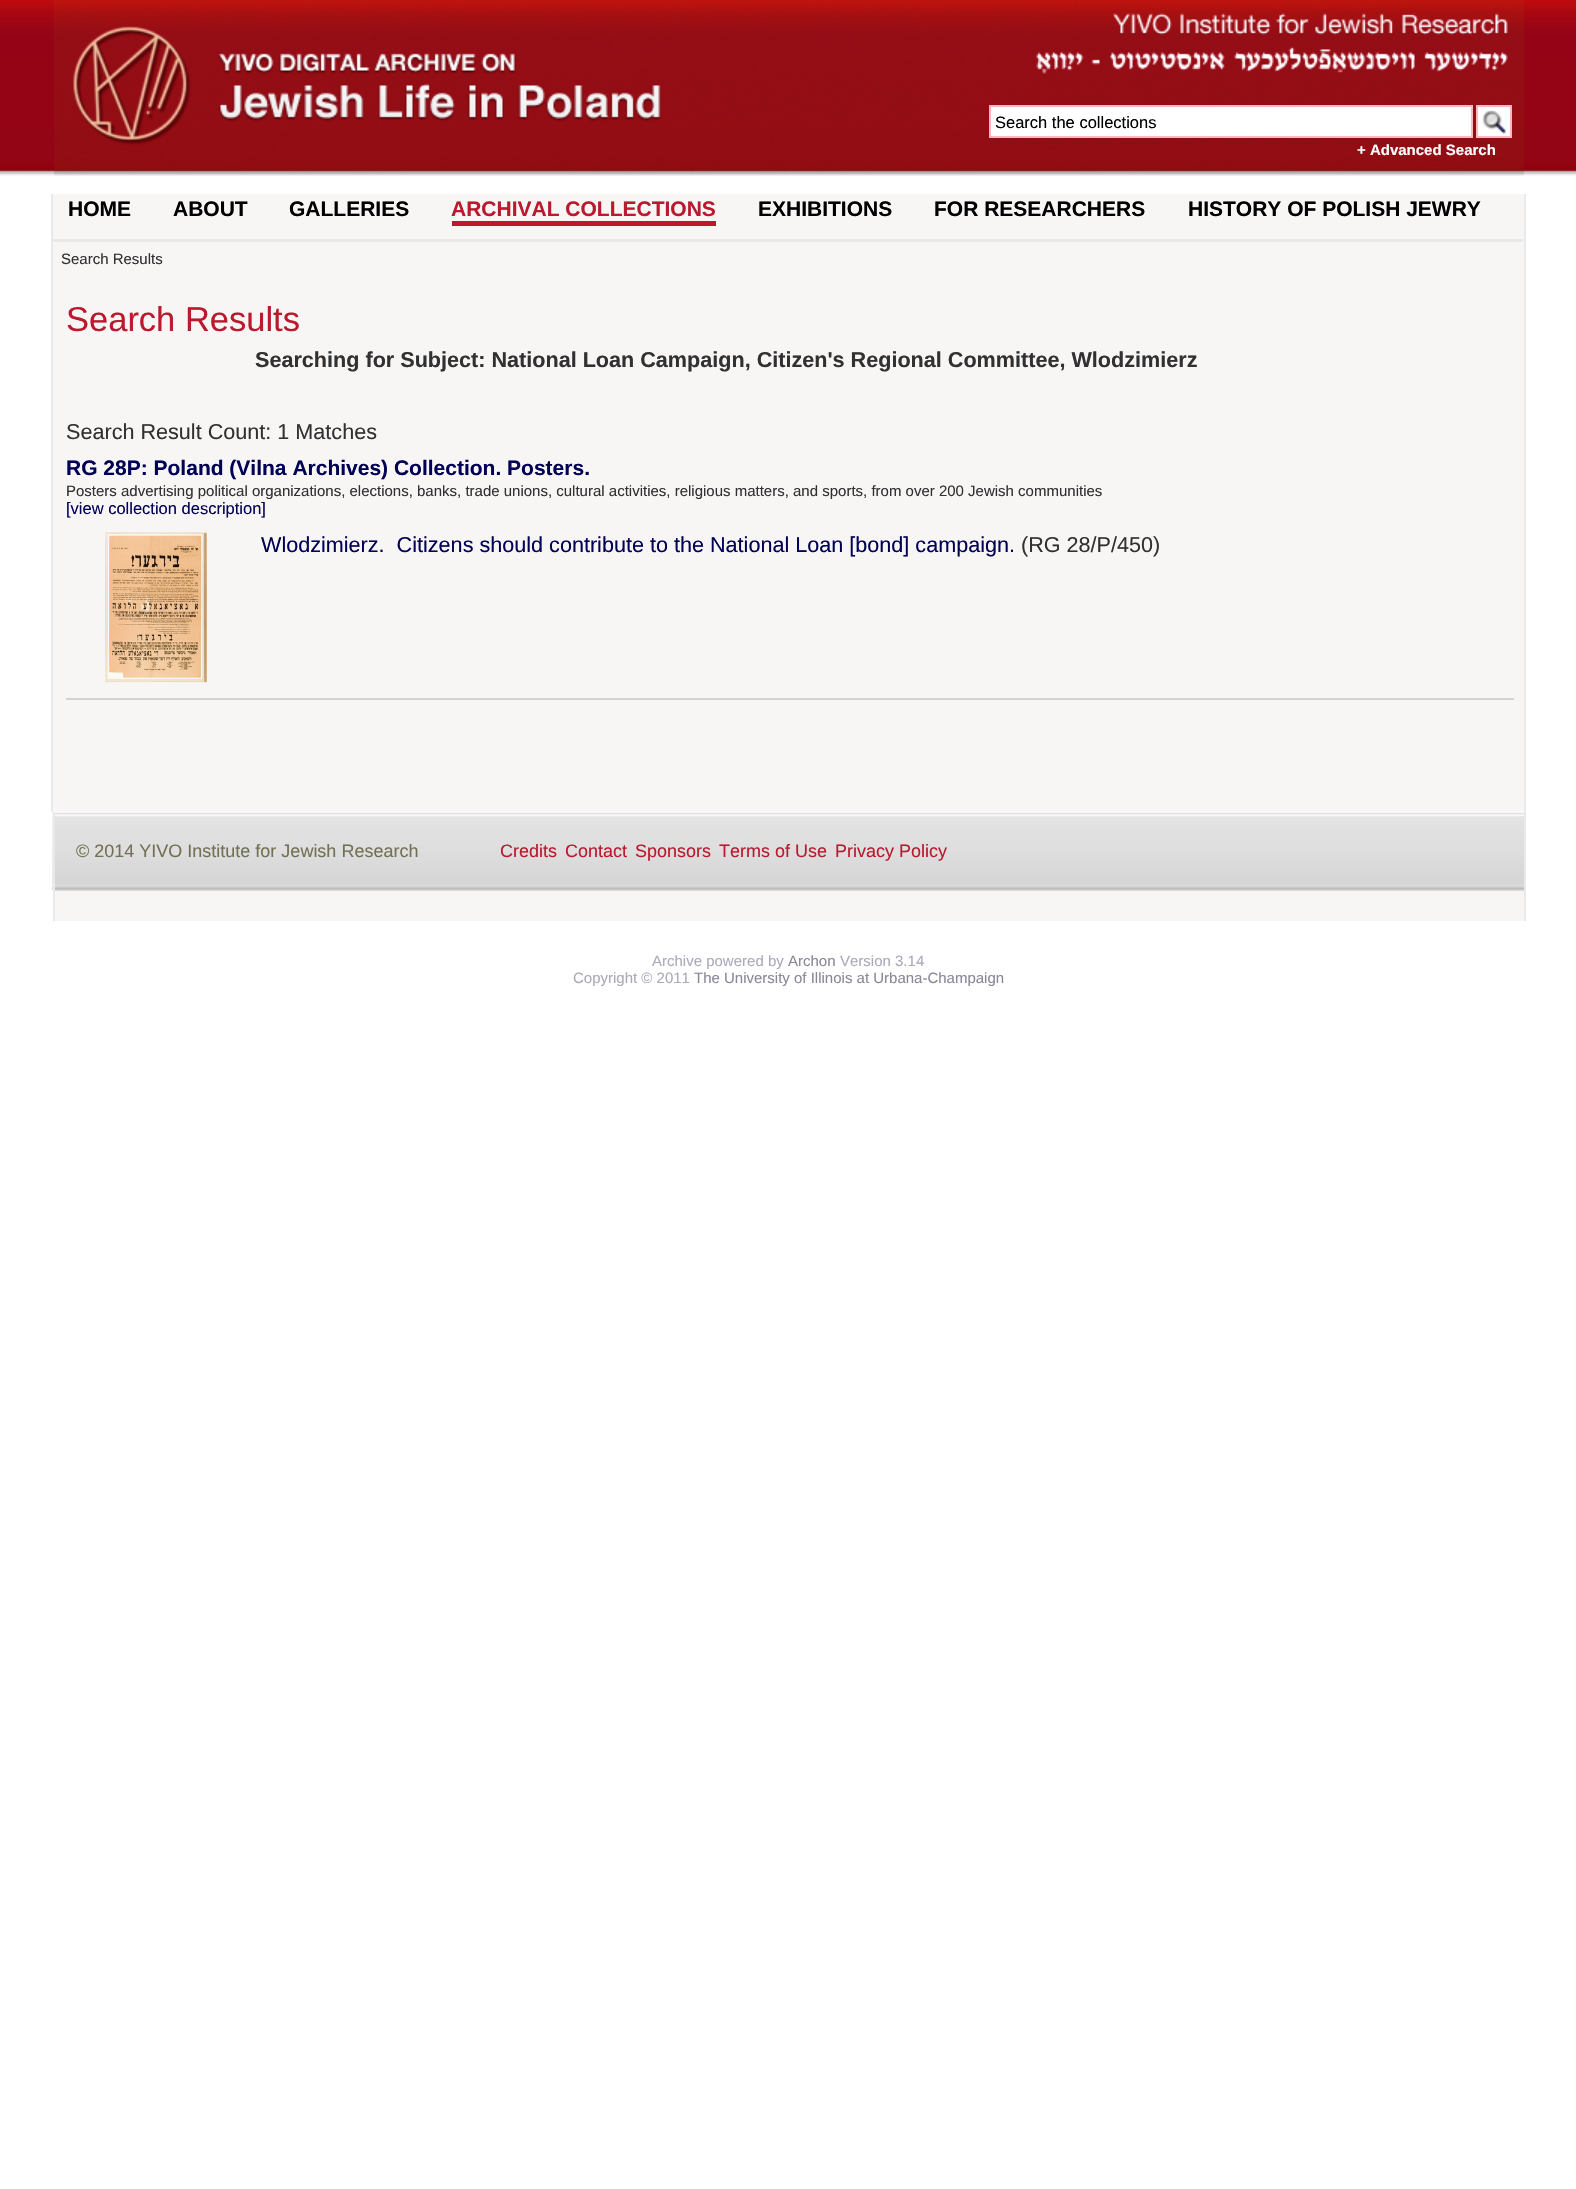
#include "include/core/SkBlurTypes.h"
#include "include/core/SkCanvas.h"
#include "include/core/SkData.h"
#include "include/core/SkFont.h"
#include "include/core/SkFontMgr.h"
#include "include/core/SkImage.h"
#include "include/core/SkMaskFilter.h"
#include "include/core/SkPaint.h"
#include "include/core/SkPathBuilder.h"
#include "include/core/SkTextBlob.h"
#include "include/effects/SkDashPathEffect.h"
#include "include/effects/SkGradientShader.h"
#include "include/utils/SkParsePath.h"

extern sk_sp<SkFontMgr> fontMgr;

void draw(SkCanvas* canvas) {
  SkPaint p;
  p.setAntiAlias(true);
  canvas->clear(SK_ColorWHITE);
  canvas->drawImageRect(SkImages::DeferredFromEncodedData(SkData::MakeFromFileName("images/1.png")), SkRect::MakeLTRB(0, 0, 1576, 176), SkSamplingOptions());
  canvas->drawImageRect(SkImages::DeferredFromEncodedData(SkData::MakeFromFileName("images/2.png")), SkRect::MakeLTRB(54, 0, 1524, 176), SkSamplingOptions());
  p.setColor(SK_ColorWHITE);
  canvas->drawRect(SkRect::MakeLTRB(990, 106, 1472, 137), p);
  p.setStyle(SkPaint::kStroke_Style);
  p.setStrokeWidth(2);
  p.setColor(SkColorSetRGB(255, 182, 193));
  canvas->drawRect(SkRect::MakeLTRB(990, 106, 1472, 137), p);
  p.setStyle(SkPaint::kFill_Style);
  p.setColor(SK_ColorWHITE);
  canvas->drawRect(SkRect::MakeLTRB(1478, 107, 1510, 136), p);
  canvas->drawImageRect(SkImages::DeferredFromEncodedData(SkData::MakeFromFileName("images/3.png")), SkRect::MakeLTRB(1482, 110, 1506, 134), SkSamplingOptions());
  p.setStyle(SkPaint::kStroke_Style);
  p.setColor(SkColorSetRGB(255, 182, 193));
  canvas->drawRect(SkRect::MakeLTRB(1477, 106, 1511, 137), p);
  p.setStyle(SkPaint::kFill_Style);
  p.setColor(SkColorSetRGB(248, 245, 245));
  canvas->drawRect(SkRect::MakeLTRB(53, 194, 1524, 812), p);
  p.setColor(SkColorSetRGB(233, 233, 233));
  canvas->drawRect(SkRect::MakeLTRB(1524, 194, 1526, 812), p);
  canvas->drawRect(SkRect::MakeLTRB(51, 194, 53, 812), p);
  canvas->drawRect(SkRect::MakeLTRB(53, 239, 1523, 242), p);
  p.setColor(SkColorSetRGB(186, 25, 46));
  canvas->drawRect(SkRect::MakeLTRB(452, 221, 716, 226), p);
  p.setColor(SkColorSetRGB(211, 211, 211));
  canvas->drawRect(SkRect::MakeLTRB(66, 698, 1514, 700), p);
  canvas->drawImageRect(SkImages::DeferredFromEncodedData(SkData::MakeFromFileName("images/4.png")), SkRect::MakeLTRB(105, 532, 207, 683), SkSamplingOptions());
  canvas->drawImageRect(SkImages::DeferredFromEncodedData(SkData::MakeFromFileName("images/5.png")), SkRect::MakeLTRB(52, 811, 1526, 891), SkSamplingOptions());
  p.setColor(SkColorSetRGB(233, 233, 233));
  canvas->drawRect(SkRect::MakeLTRB(1524, 812, 1526, 891), p);
  canvas->drawRect(SkRect::MakeLTRB(53, 812, 55, 891), p);
  p.setColor(SkColorSetRGB(248, 245, 245));
  canvas->drawRect(SkRect::MakeLTRB(55, 891, 1524, 921), p);
  p.setColor(SkColorSetRGB(233, 233, 233));
  canvas->drawRect(SkRect::MakeLTRB(1524, 891, 1526, 921), p);
  canvas->drawRect(SkRect::MakeLTRB(53, 891, 55, 921), p);
  SkFont font1(fontMgr->matchFamilyStyle("Liberation Sans", SkFontStyle::Normal()), 16.5f);
  font1.setSubpixel(true);
  p.setColor(SK_ColorBLACK);
  canvas->drawString("Search the collections", 995, 128, font1, p);
  SkFont font2(fontMgr->matchFamilyStyle("Liberation Sans", SkFontStyle::Bold()), 15);
  font2.setSubpixel(true);
  p.setColor(SK_ColorWHITE);
  canvas->drawString("+ Advanced Search", 1357, 155, font2, p);
  SkFont font3(fontMgr->matchFamilyStyle("Liberation Sans", SkFontStyle::Bold()), 21);
  font3.setSubpixel(true);
  p.setColor(SK_ColorBLACK);
  canvas->drawString("HOME", 68, 216, font3, p);
  canvas->drawString("ABOUT", 173, 216, font3, p);
  canvas->drawString("GALLERIES", 289, 216, font3, p);
  p.setColor(SkColorSetRGB(186, 25, 46));
  canvas->drawString("ARCHIVAL COLLECTIONS", 451, 216, font3, p);
  p.setColor(SK_ColorBLACK);
  canvas->drawString("EXHIBITIONS", 758, 216, font3, p);
  canvas->drawString("FOR RESEARCHERS", 934, 216, font3, p);
  canvas->drawString("HISTORY OF POLISH JEWRY", 1188, 216, font3, p);
  SkFont font4(fontMgr->matchFamilyStyle("Liberation Sans", SkFontStyle::Normal()), 15);
  font4.setSubpixel(true);
  p.setColor(SkColorSetRGB(49, 49, 49));
  canvas->drawString("Search Results", 61, 264, font4, p);
  SkFont font5(fontMgr->matchFamilyStyle("Liberation Sans", SkFontStyle::Normal()), 34.5f);
  font5.setSubpixel(true);
  p.setColor(SkColorSetRGB(186, 25, 46));
  canvas->drawString("Search Results", 66, 331, font5, p);
  SkFont font6(fontMgr->matchFamilyStyle("Liberation Sans", SkFontStyle::Bold()), 21.6f);
  font6.setSubpixel(true);
  p.setColor(SkColorSetRGB(49, 49, 49));
  canvas->drawString("Searching for Subject: National Loan Campaign, Citizen's Regional Committee, Wlodzimierz", 255, 367, font6, p);
  SkFont font7(fontMgr->matchFamilyStyle("Liberation Sans", SkFontStyle::Normal()), 21.6f);
  font7.setSubpixel(true);
  canvas->drawString("Search Result Count: 1 Matches", 66, 439, font7, p);
  p.setColor(SkColorSetRGB(0, 0, 85));
  canvas->drawString("RG 28P: Poland (Vilna Archives) Collection. Posters.", 66, 475, font3, p);
  p.setColor(SkColorSetRGB(49, 49, 49));
  canvas->drawString("Posters advertising political organizations, elections, banks, trade unions, cultural activities, religious matters, and sports, from over 200 Jewish communities", 66, 496, font4, p);
  p.setColor(SkColorSetRGB(0, 0, 85));
  canvas->drawString("[view collection description]", 66, 514, font1, p);
  canvas->drawString("Wlodzimierz.  Citizens should contribute to the National Loan [bond] campaign.", 261, 552, font7, p);
  p.setColor(SkColorSetRGB(49, 49, 49));
  canvas->drawString("(RG 28/P/450)", 1021, 552, font7, p);
  SkFont font8(fontMgr->matchFamilyStyle("Liberation Sans", SkFontStyle::Normal()), 18);
  font8.setSubpixel(true);
  p.setColor(SkColorSetRGB(114, 112, 84));
  canvas->drawString("© 2014 YIVO Institute for Jewish Research", 76, 857, font8, p);
  p.setColor(SkColorSetRGB(186, 25, 46));
  canvas->drawString("Credits", 500, 857, font8, p);
  canvas->drawString("Contact", 565, 857, font8, p);
  canvas->drawString("Sponsors", 635, 857, font8, p);
  canvas->drawString("Terms of Use", 719, 857, font8, p);
  canvas->drawString("Privacy Policy", 835, 857, font8, p);
  p.setColor(SkColorSetRGB(170, 170, 187));
  canvas->drawString("Archive powered by", 652, 966, font4, p);
  p.setColor(SkColorSetRGB(136, 136, 153));
  canvas->drawString("Archon", 788, 966, font4, p);
  p.setColor(SkColorSetRGB(170, 170, 187));
  canvas->drawString("Version 3.14", 840, 966, font4, p);
  canvas->drawString("Copyright © 2011", 573, 983, font4, p);
  p.setColor(SkColorSetRGB(136, 136, 153));
  canvas->drawString("The University of Illinois at Urbana-Champaign", 694, 983, font4, p);
}
